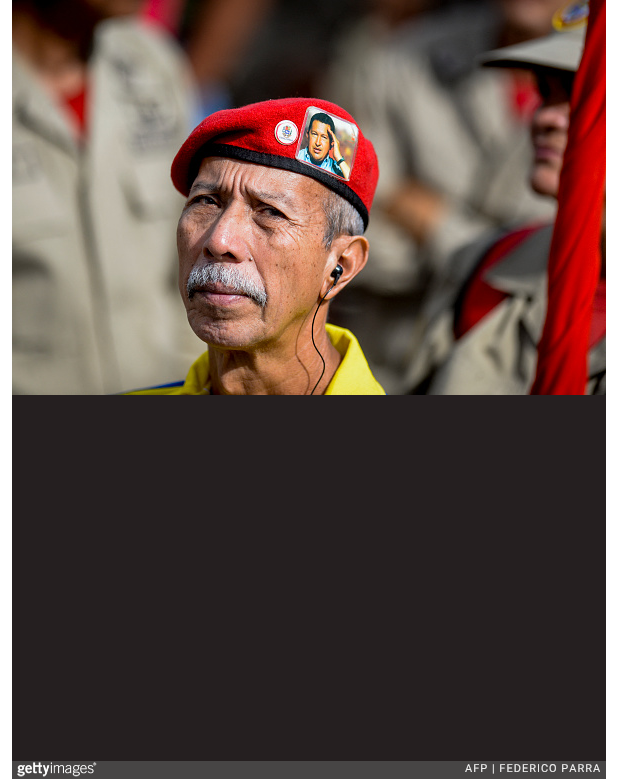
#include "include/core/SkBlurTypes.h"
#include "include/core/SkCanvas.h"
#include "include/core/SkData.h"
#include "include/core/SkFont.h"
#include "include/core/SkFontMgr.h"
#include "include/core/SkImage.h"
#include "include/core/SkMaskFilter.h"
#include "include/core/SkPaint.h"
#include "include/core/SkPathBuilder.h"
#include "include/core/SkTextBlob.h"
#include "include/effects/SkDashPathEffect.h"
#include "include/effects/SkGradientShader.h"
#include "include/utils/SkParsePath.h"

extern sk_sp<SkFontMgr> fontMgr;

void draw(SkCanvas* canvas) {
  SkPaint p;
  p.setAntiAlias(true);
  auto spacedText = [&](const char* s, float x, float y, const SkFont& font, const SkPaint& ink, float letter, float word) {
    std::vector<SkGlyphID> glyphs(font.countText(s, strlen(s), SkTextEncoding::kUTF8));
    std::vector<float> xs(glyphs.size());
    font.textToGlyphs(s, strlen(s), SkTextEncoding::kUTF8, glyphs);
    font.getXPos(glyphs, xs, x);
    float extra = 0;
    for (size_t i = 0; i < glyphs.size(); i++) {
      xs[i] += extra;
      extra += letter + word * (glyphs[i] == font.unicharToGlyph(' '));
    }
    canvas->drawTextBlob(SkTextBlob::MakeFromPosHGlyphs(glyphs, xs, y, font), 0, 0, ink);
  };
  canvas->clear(SK_ColorWHITE);
  p.setColor(SkColorSetRGB(37, 31, 32));
  canvas->drawRect(SkRect::MakeLTRB(12, 395, 606, 761), p);
  canvas->drawImageRect(SkImages::DeferredFromEncodedData(SkData::MakeFromFileName("images/1.png")), SkRect::MakeLTRB(12, 0, 606, 395), SkSamplingOptions());
  p.setColor(SkColorSetRGB(71, 69, 69));
  canvas->drawRect(SkRect::MakeLTRB(12, 761, 606, 779), p);
  canvas->drawImageRect(SkImages::DeferredFromEncodedData(SkData::MakeFromFileName("images/2.png")), SkRect::MakeLTRB(17, 762, 97, 777), SkSamplingOptions());
  SkFont font1(fontMgr->matchFamilyStyle("Roboto", SkFontStyle::Normal()), 11);
  font1.setSubpixel(true);
  p.setColor(SkColorSetRGB(238, 238, 238));
  spacedText("AFP | FEDERICO PARRA", 465, 772, font1, p, 1, 0);
}
